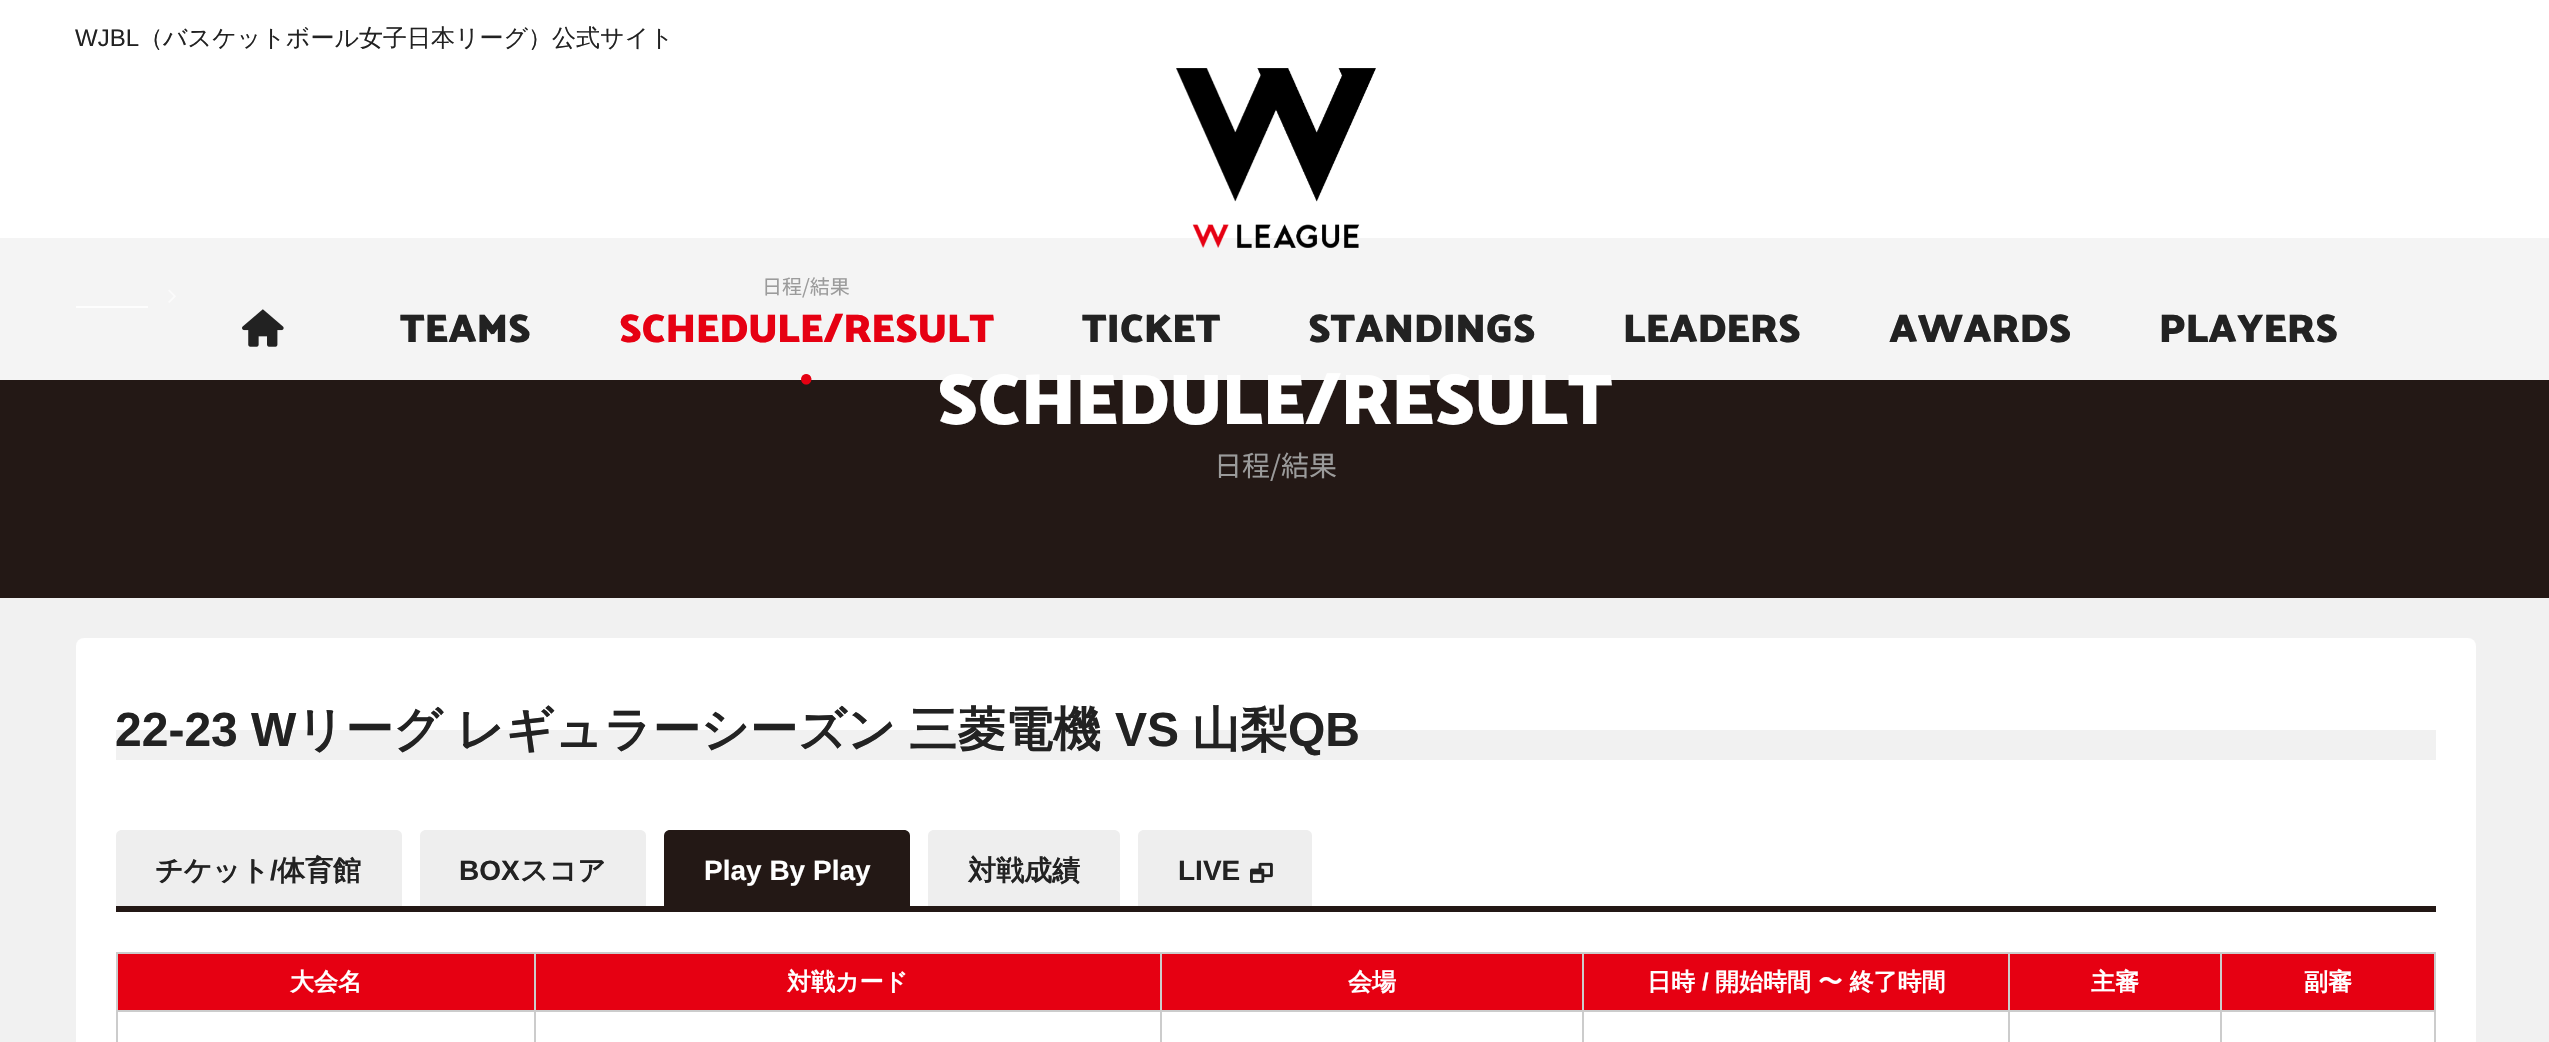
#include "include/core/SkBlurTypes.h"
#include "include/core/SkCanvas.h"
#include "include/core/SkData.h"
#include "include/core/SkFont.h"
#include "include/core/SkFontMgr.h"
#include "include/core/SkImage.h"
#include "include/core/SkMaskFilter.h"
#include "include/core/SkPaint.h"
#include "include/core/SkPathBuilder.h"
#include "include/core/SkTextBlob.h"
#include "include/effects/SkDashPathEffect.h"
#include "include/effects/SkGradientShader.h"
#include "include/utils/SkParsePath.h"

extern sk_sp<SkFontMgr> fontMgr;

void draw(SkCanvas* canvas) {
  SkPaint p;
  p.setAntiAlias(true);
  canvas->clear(SkColorSetRGB(241, 241, 241));
  p.setColor(SkColorSetRGB(35, 24, 21));
  canvas->drawRect(SkRect::MakeLTRB(0, 238, 2549, 598), p);
  canvas->drawImageRect(SkImages::DeferredFromEncodedData(SkData::MakeFromFileName("images/3.png")), SkRect::MakeLTRB(168, 289, 176, 303), SkSamplingOptions());
  p.setColor(SkColorSetRGB(214, 213, 213));
  canvas->drawRect(SkRect::MakeLTRB(76, 306, 148, 308), p);
  p.setColor(SK_ColorWHITE);
  canvas->drawRoundRect(SkRect::MakeLTRB(76, 638, 2476, 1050), 8, 8, p);
  p.setColor(SkColorSetRGB(241, 241, 241));
  canvas->drawRect(SkRect::MakeLTRB(116, 730, 2436, 760), p);
  p.setColor(SkColorSetRGB(238, 238, 238));
  canvas->drawPath(SkPathBuilder().moveTo(122, 830).lineTo(396, 830).cubicTo(399.5f, 830, 402, 832.5f, 402, 836).lineTo(402, 912).lineTo(116, 912).lineTo(116, 836).cubicTo(116, 832.5f, 118.5f, 830, 122, 830).close().detach(), p);
  canvas->drawPath(SkPathBuilder().moveTo(426, 830).lineTo(640, 830).cubicTo(643.5f, 830, 646, 832.5f, 646, 836).lineTo(646, 912).lineTo(420, 912).lineTo(420, 836).cubicTo(420, 832.5f, 422.5f, 830, 426, 830).close().detach(), p);
  p.setColor(SkColorSetRGB(35, 24, 21));
  canvas->drawPath(SkPathBuilder().moveTo(670, 830).lineTo(904, 830).cubicTo(907.5f, 830, 910, 832.5f, 910, 836).lineTo(910, 912).lineTo(664, 912).lineTo(664, 836).cubicTo(664, 832.5f, 666.5f, 830, 670, 830).close().detach(), p);
  p.setColor(SkColorSetRGB(238, 238, 238));
  canvas->drawPath(SkPathBuilder().moveTo(934, 830).lineTo(1114, 830).cubicTo(1117.5f, 830, 1120, 832.5f, 1120, 836).lineTo(1120, 912).lineTo(928, 912).lineTo(928, 836).cubicTo(928, 832.5f, 930.5f, 830, 934, 830).close().detach(), p);
  canvas->drawPath(SkPathBuilder().moveTo(1144, 830).lineTo(1306, 830).cubicTo(1309.5f, 830, 1312, 832.5f, 1312, 836).lineTo(1312, 912).lineTo(1138, 912).lineTo(1138, 836).cubicTo(1138, 832.5f, 1140.5f, 830, 1144, 830).close().detach(), p);
  canvas->drawImageRect(SkImages::DeferredFromEncodedData(SkData::MakeFromFileName("images/4.png")), SkRect::MakeLTRB(1250, 862, 1273, 883), SkSamplingOptions());
  p.setColor(SkColorSetRGB(35, 24, 21));
  canvas->drawRect(SkRect::MakeLTRB(116, 906, 2436, 912), p);
  p.setColor(SkColorSetRGB(230, 0, 18));
  canvas->drawRect(SkRect::MakeLTRB(118, 954, 534, 1010), p);
  p.setColor(SkColorSetRGB(204, 204, 204));
  canvas->drawRect(SkRect::MakeLTRB(2220, 952, 2436, 954), p);
  canvas->drawRect(SkRect::MakeLTRB(2220, 1010, 2436, 1012), p);
  canvas->drawRect(SkRect::MakeLTRB(2220, 1010, 2222, 1042), p);
  canvas->drawRect(SkRect::MakeLTRB(2008, 1010, 2222, 1012), p);
  canvas->drawRect(SkRect::MakeLTRB(2220, 952, 2222, 1012), p);
  canvas->drawRect(SkRect::MakeLTRB(2008, 952, 2222, 954), p);
  canvas->drawRect(SkRect::MakeLTRB(2008, 1010, 2010, 1042), p);
  canvas->drawRect(SkRect::MakeLTRB(1582, 1010, 2010, 1012), p);
  canvas->drawRect(SkRect::MakeLTRB(2008, 952, 2010, 1012), p);
  canvas->drawRect(SkRect::MakeLTRB(1582, 952, 2010, 954), p);
  canvas->drawRect(SkRect::MakeLTRB(1582, 1010, 1584, 1042), p);
  canvas->drawRect(SkRect::MakeLTRB(1160, 1010, 1584, 1012), p);
  canvas->drawRect(SkRect::MakeLTRB(1582, 952, 1584, 1012), p);
  canvas->drawRect(SkRect::MakeLTRB(1160, 952, 1584, 954), p);
  canvas->drawRect(SkRect::MakeLTRB(1160, 1010, 1162, 1042), p);
  canvas->drawRect(SkRect::MakeLTRB(534, 1010, 1162, 1012), p);
  canvas->drawRect(SkRect::MakeLTRB(1160, 952, 1162, 1012), p);
  canvas->drawRect(SkRect::MakeLTRB(534, 952, 1162, 954), p);
  canvas->drawRect(SkRect::MakeLTRB(534, 1010, 536, 1042), p);
  canvas->drawRect(SkRect::MakeLTRB(116, 1010, 536, 1012), p);
  canvas->drawRect(SkRect::MakeLTRB(534, 952, 536, 1012), p);
  canvas->drawRect(SkRect::MakeLTRB(116, 952, 536, 954), p);
  canvas->drawRect(SkRect::MakeLTRB(116, 1010, 118, 1042), p);
  canvas->drawRect(SkRect::MakeLTRB(116, 952, 118, 1012), p);
  p.setColor(SkColorSetRGB(230, 0, 18));
  canvas->drawRect(SkRect::MakeLTRB(536, 954, 1160, 1010), p);
  canvas->drawRect(SkRect::MakeLTRB(1162, 954, 1582, 1010), p);
  canvas->drawRect(SkRect::MakeLTRB(1584, 954, 2008, 1010), p);
  canvas->drawRect(SkRect::MakeLTRB(2010, 954, 2220, 1010), p);
  canvas->drawRect(SkRect::MakeLTRB(2222, 954, 2434, 1010), p);
  p.setColor(SkColorSetRGB(204, 204, 204));
  canvas->drawRect(SkRect::MakeLTRB(2434, 1010, 2436, 1042), p);
  canvas->drawRect(SkRect::MakeLTRB(2434, 952, 2436, 1012), p);
  SkFont font1(fontMgr->matchFamilyStyle("Palanquin Dark", SkFontStyle::Bold()), 72);
  font1.setSubpixel(true);
  p.setColor(SK_ColorWHITE);
  canvas->drawString("SCHEDULE/RESULT", 937, 424, font1, p);
  p.setColor(SkColorSetARGB(242, 255, 255, 255));
  canvas->drawRect(SkRect::MakeLTRB(0, 0, 2549, 380), p);
  SkFont font2(fontMgr->matchFamilyStyle("Palanquin Dark", SkFontStyle::Bold()), 40);
  font2.setSubpixel(true);
  p.setColor(SkColorSetRGB(34, 34, 34));
  canvas->drawString("PLAYERS", 2159, 342, font2, p);
  canvas->drawString("AWARDS", 1889, 342, font2, p);
  canvas->drawString("LEADERS", 1623, 342, font2, p);
  canvas->drawString("STANDINGS", 1308, 342, font2, p);
  canvas->drawString("TICKET", 1082, 342, font2, p);
  SkFont font3(fontMgr->matchFamilyStyle("Liberation Sans", SkFontStyle::Normal()), 24);
  font3.setSubpixel(true);
  p.setColor(SkColorSetRGB(230, 0, 18));
  canvas->drawString("●", 799, 386, font3, p);
  SkFont font4(fontMgr->matchFamilyStyle("Noto Sans JP", SkFontStyle::Normal()), 20);
  font4.setSubpixel(true);
  p.setColor(SkColorSetRGB(155, 155, 155));
  canvas->drawString("日程/結果", 762, 294, font4, p);
  p.setColor(SkColorSetRGB(230, 0, 18));
  canvas->drawString("SCHEDULE/RESULT", 619, 342, font2, p);
  p.setColor(SkColorSetRGB(34, 34, 34));
  canvas->drawString("TEAMS", 400, 342, font2, p);
  canvas->drawImageRect(SkImages::DeferredFromEncodedData(SkData::MakeFromFileName("images/2.png")), SkRect::MakeLTRB(242, 309, 284, 347), SkSamplingOptions());
  canvas->drawImageRect(SkImages::DeferredFromEncodedData(SkData::MakeFromFileName("images/1.png")), SkRect::MakeLTRB(1176, 68, 1376, 248), SkSamplingOptions());
  SkFont font5(fontMgr->matchFamilyStyle("WenQuanYi Zen Hei", SkFontStyle(500, SkFontStyle::kNormal_Width, SkFontStyle::kUpright_Slant)), 24);
  font5.setSubpixel(true);
  canvas->drawString("（バスケットボール女子日本リーグ）公式サイト", 139, 46, font5, p);
  canvas->drawString("WJBL", 75, 46, font3, p);
  SkFont font6(fontMgr->matchFamilyStyle("Noto Sans JP", SkFontStyle::Normal()), 28);
  font6.setSubpixel(true);
  p.setColor(SkColorSetRGB(155, 155, 155));
  canvas->drawString("日程/結果", 1214, 476, font6, p);
  SkFont font7(fontMgr->matchFamilyStyle("Liberation Sans", SkFontStyle::Bold()), 48);
  font7.setSubpixel(true);
  p.setColor(SkColorSetRGB(34, 34, 34));
  canvas->drawString("22-23 W", 115, 746, font7, p);
  SkFont font8(fontMgr->matchFamilyStyle("WenQuanYi Zen Hei", SkFontStyle::Bold()), 48);
  font8.setSubpixel(true);
  canvas->drawString("リーグ", 296, 746, font8, p);
  canvas->drawString("レギュラーシーズン", 456, 746, font8, p);
  canvas->drawString("三菱電機", 909, 746, font8, p);
  canvas->drawString("VS", 1115, 746, font7, p);
  canvas->drawString("山梨", 1192, 746, font8, p);
  canvas->drawString("QB", 1288, 746, font7, p);
  SkFont font9(fontMgr->matchFamilyStyle("WenQuanYi Zen Hei", SkFontStyle::Bold()), 28);
  font9.setSubpixel(true);
  canvas->drawString("チケット", 155, 880, font9, p);
  SkFont font10(fontMgr->matchFamilyStyle("Liberation Sans", SkFontStyle::Bold()), 28);
  font10.setSubpixel(true);
  canvas->drawString("/", 270, 880, font10, p);
  canvas->drawString("体育館", 277, 880, font9, p);
  canvas->drawString("BOX", 459, 880, font10, p);
  canvas->drawString("スコア", 520, 880, font9, p);
  p.setColor(SK_ColorWHITE);
  canvas->drawString("Play By Play", 704, 880, font10, p);
  p.setColor(SkColorSetRGB(34, 34, 34));
  canvas->drawString("対戦成績", 968, 880, font9, p);
  canvas->drawString("LIVE", 1178, 880, font10, p);
  SkFont font11(fontMgr->matchFamilyStyle("WenQuanYi Zen Hei", SkFontStyle::Bold()), 24);
  font11.setSubpixel(true);
  p.setColor(SK_ColorWHITE);
  canvas->drawString("大会名", 290, 990, font11, p);
  canvas->drawString("対戦カード", 787, 990, font11, p);
  canvas->drawString("会場", 1348, 990, font11, p);
  canvas->drawString("日時", 1647, 990, font11, p);
  SkFont font12(fontMgr->matchFamilyStyle("Liberation Sans", SkFontStyle::Bold()), 24);
  font12.setSubpixel(true);
  canvas->drawString("/", 1702, 990, font12, p);
  canvas->drawString("開始時間 〜 終了時間", 1715, 990, font11, p);
  canvas->drawString("主審", 2091, 990, font11, p);
  canvas->drawString("副審", 2304, 990, font11, p);
}
